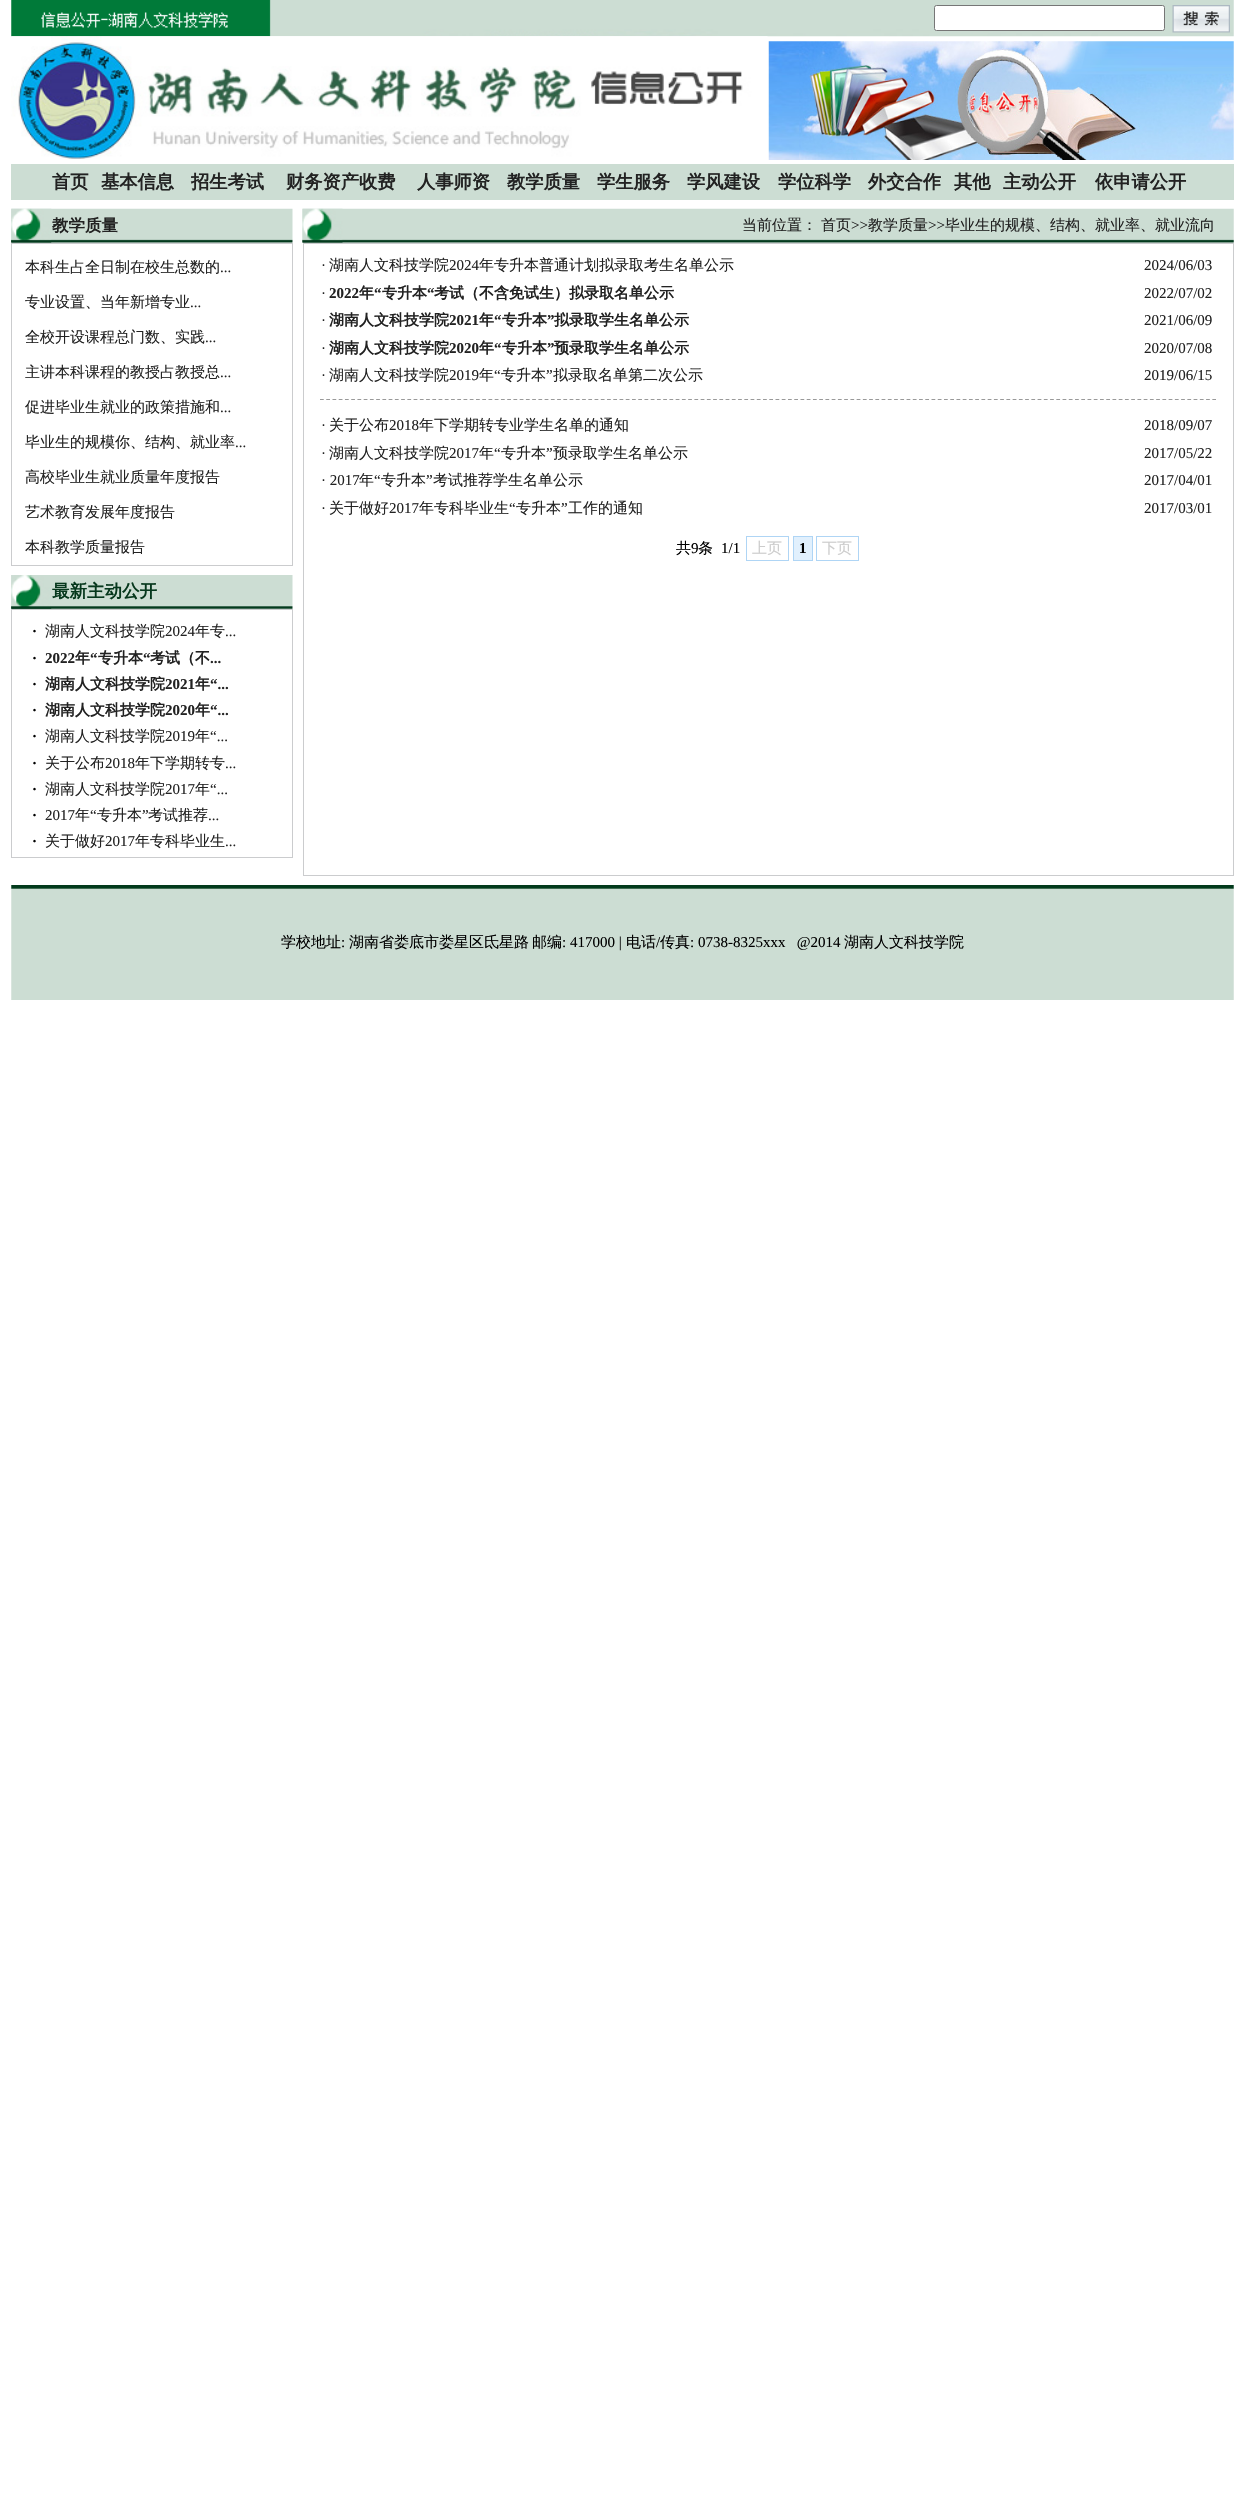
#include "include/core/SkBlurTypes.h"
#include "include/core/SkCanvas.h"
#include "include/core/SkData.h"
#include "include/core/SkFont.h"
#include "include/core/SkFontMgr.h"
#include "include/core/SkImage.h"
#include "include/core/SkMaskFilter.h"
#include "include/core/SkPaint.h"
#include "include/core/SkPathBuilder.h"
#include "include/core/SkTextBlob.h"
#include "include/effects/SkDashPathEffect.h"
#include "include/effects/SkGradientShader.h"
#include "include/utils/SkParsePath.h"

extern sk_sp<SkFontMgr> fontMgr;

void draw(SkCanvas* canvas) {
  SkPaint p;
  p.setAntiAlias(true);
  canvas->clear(SK_ColorWHITE);
  canvas->drawImageRect(SkImages::DeferredFromEncodedData(SkData::MakeFromFileName("images/1.png")), SkRect::MakeLTRB(11, 0, 1234, 37), SkSamplingOptions());
  p.setColor(SK_ColorWHITE);
  canvas->drawRoundRect(SkRect::MakeLTRB(934.5f, 5.5f, 1164.5f, 30.5f), 2, 2, p);
  p.setStyle(SkPaint::kStroke_Style);
  p.setStrokeWidth(1);
  p.setColor(SkColorSetRGB(118, 118, 118));
  canvas->drawRoundRect(SkRect::MakeLTRB(934.5f, 5.5f, 1164.5f, 30.5f), 2, 2, p);
  canvas->drawImageRect(SkImages::DeferredFromEncodedData(SkData::MakeFromFileName("images/2.png")), SkRect::MakeLTRB(1172, 5, 1230, 33), SkSamplingOptions());
  canvas->drawImageRect(SkImages::DeferredFromEncodedData(SkData::MakeFromFileName("images/3.png")), SkRect::MakeLTRB(11, 36, 768, 159), SkSamplingOptions());
  canvas->drawImageRect(SkImages::DeferredFromEncodedData(SkData::MakeFromFileName("images/4.png")), SkRect::MakeLTRB(768, 41, 1234, 160), SkSamplingOptions());
  p.setStyle(SkPaint::kFill_Style);
  p.setColor(SkColorSetRGB(204, 221, 211));
  canvas->drawRect(SkRect::MakeLTRB(11, 164, 1234, 200), p);
  canvas->drawImageRect(SkImages::DeferredFromEncodedData(SkData::MakeFromFileName("images/5.png")), SkRect::MakeLTRB(11, 208, 293, 243), SkSamplingOptions());
  canvas->drawImageRect(SkImages::DeferredFromEncodedData(SkData::MakeFromFileName("images/6.png")), SkRect::MakeLTRB(11, 208, 52, 243), SkSamplingOptions());
  p.setStyle(SkPaint::kStroke_Style);
  p.setColor(SkColorSetRGB(203, 204, 206));
  canvas->drawRect(SkRect::MakeLTRB(11.5f, 243.5f, 292.5f, 565.5f), p);
  canvas->drawImageRect(SkImages::DeferredFromEncodedData(SkData::MakeFromFileName("images/7.png")), SkRect::MakeLTRB(11, 575, 293, 609), SkSamplingOptions());
  canvas->drawImageRect(SkImages::DeferredFromEncodedData(SkData::MakeFromFileName("images/8.png")), SkRect::MakeLTRB(11, 575, 52, 609), SkSamplingOptions());
  canvas->drawRect(SkRect::MakeLTRB(11.5f, 609.5f, 292.5f, 857.5f), p);
  canvas->drawImageRect(SkImages::DeferredFromEncodedData(SkData::MakeFromFileName("images/9.png")), SkRect::MakeLTRB(302, 208, 1234, 243), SkSamplingOptions());
  canvas->drawImageRect(SkImages::DeferredFromEncodedData(SkData::MakeFromFileName("images/10.png")), SkRect::MakeLTRB(302, 208, 343, 243), SkSamplingOptions());
  canvas->drawRect(SkRect::MakeLTRB(303.5f, 243.5f, 1233.5f, 875.5f), p);
  p.setStrokeWidth(1.2f);
  p.setColor(SkColorSetRGB(153, 153, 153));
  p.setPathEffect(SkDashPathEffect::Make({{3.75f, 2.49f}}, 0));
  canvas->drawPath(SkPathBuilder().moveTo(320, 399.5f).lineTo(1216, 399.5f).detach(), p);
  p.setPathEffect(nullptr);
  p.setStrokeWidth(1);
  p.setColor(SkColorSetRGB(175, 213, 245));
  canvas->drawRect(SkRect::MakeLTRB(746.5f, 536.5f, 788.5f, 560.5f), p);
  p.setStyle(SkPaint::kFill_Style);
  p.setColor(SkColorSetRGB(225, 240, 253));
  canvas->drawRect(SkRect::MakeLTRB(793.5f, 536.5f, 812.5f, 560.5f), p);
  p.setStyle(SkPaint::kStroke_Style);
  p.setColor(SkColorSetRGB(175, 213, 245));
  canvas->drawRect(SkRect::MakeLTRB(793.5f, 536.5f, 812.5f, 560.5f), p);
  canvas->drawRect(SkRect::MakeLTRB(816.5f, 536.5f, 858.5f, 560.5f), p);
  canvas->drawImageRect(SkImages::DeferredFromEncodedData(SkData::MakeFromFileName("images/11.png")), SkRect::MakeLTRB(11, 885, 1234, 1000), SkSamplingOptions());
  SkFont font1(fontMgr->matchFamilyStyle("WenQuanYi Zen Hei", SkFontStyle::Bold()), 18.25f);
  font1.setSubpixel(true);
  p.setStyle(SkPaint::kFill_Style);
  p.setColor(SkColorSetRGB(34, 34, 34));
  canvas->drawString("首页", 52, 188, font1, p);
  canvas->drawString("基本信息", 101, 188, font1, p);
  canvas->drawString("招生考试", 191, 188, font1, p);
  canvas->drawString("财务资产收费", 286, 188, font1, p);
  canvas->drawString("人事师资", 417, 188, font1, p);
  canvas->drawString("教学质量", 507, 188, font1, p);
  canvas->drawString("学生服务", 597, 188, font1, p);
  canvas->drawString("学风建设", 687, 188, font1, p);
  canvas->drawString("学位科学", 778, 188, font1, p);
  canvas->drawString("外交合作", 868, 188, font1, p);
  canvas->drawString("其他", 954, 188, font1, p);
  canvas->drawString("主动公开", 1003, 188, font1, p);
  canvas->drawString("依申请公开", 1095, 188, font1, p);
  SkFont font2(fontMgr->matchFamilyStyle("WenQuanYi Zen Hei", SkFontStyle::Bold()), 16.5f);
  font2.setSubpixel(true);
  canvas->drawString("教学质量", 52, 231, font2, p);
  SkFont font3(fontMgr->matchFamilyStyle("WenQuanYi Zen Hei", SkFontStyle(500, SkFontStyle::kNormal_Width, SkFontStyle::kUpright_Slant)), 15);
  font3.setSubpixel(true);
  canvas->drawString("本科生占全日制在校生总数的", 25, 272, font3, p);
  SkFont font4(fontMgr->matchFamilyStyle("Liberation Serif", SkFontStyle::Normal()), 15);
  font4.setSubpixel(true);
  canvas->drawString("...", 220, 272, font4, p);
  canvas->drawString("专业设置、当年新增专业", 25, 307, font3, p);
  canvas->drawString("...", 190, 307, font4, p);
  canvas->drawString("全校开设课程总门数、实践", 25, 342, font3, p);
  canvas->drawString("...", 205, 342, font4, p);
  canvas->drawString("主讲本科课程的教授占教授总", 25, 377, font3, p);
  canvas->drawString("...", 220, 377, font4, p);
  canvas->drawString("促进毕业生就业的政策措施和", 25, 412, font3, p);
  canvas->drawString("...", 220, 412, font4, p);
  canvas->drawString("毕业生的规模你、结构、就业率", 25, 447, font3, p);
  canvas->drawString("...", 235, 447, font4, p);
  canvas->drawString("高校毕业生就业质量年度报告", 25, 482, font3, p);
  canvas->drawString("艺术教育发展年度报告", 25, 517, font3, p);
  canvas->drawString("本科教学质量报告", 25, 552, font3, p);
  SkFont font5(fontMgr->matchFamilyStyle("WenQuanYi Zen Hei", SkFontStyle::Bold()), 17.5f);
  font5.setSubpixel(true);
  p.setColor(SkColorSetRGB(6, 56, 29));
  canvas->drawString("最新主动公开", 52, 597, font5, p);
  SkFont font6(fontMgr->matchFamilyStyle("Liberation Serif", SkFontStyle::Bold()), 15);
  font6.setSubpixel(true);
  p.setColor(SK_ColorBLACK);
  canvas->drawString("·", 32, 636, font6, p);
  p.setColor(SkColorSetRGB(34, 34, 34));
  canvas->drawString("湖南人文科技学院", 45, 636, font3, p);
  canvas->drawString("2024", 165, 636, font4, p);
  canvas->drawString("年专", 195, 636, font3, p);
  canvas->drawString("...", 225, 636, font4, p);
  p.setColor(SK_ColorBLACK);
  canvas->drawString("·", 32, 663, font6, p);
  p.setColor(SkColorSetRGB(34, 34, 34));
  canvas->drawString("2022", 45, 663, font6, p);
  SkFont font7(fontMgr->matchFamilyStyle("WenQuanYi Zen Hei", SkFontStyle::Bold()), 15);
  font7.setSubpixel(true);
  canvas->drawString("年", 75, 663, font7, p);
  canvas->drawString("“", 90, 663, font6, p);
  canvas->drawString("专升本", 98, 663, font7, p);
  canvas->drawString("“", 143, 663, font6, p);
  canvas->drawString("考试（不", 150, 663, font7, p);
  canvas->drawString("...", 210, 663, font6, p);
  p.setColor(SK_ColorBLACK);
  canvas->drawString("·", 32, 689, font6, p);
  p.setColor(SkColorSetRGB(34, 34, 34));
  canvas->drawString("湖南人文科技学院", 45, 689, font7, p);
  canvas->drawString("2021", 165, 689, font6, p);
  canvas->drawString("年", 195, 689, font7, p);
  canvas->drawString("“...", 210, 689, font6, p);
  p.setColor(SK_ColorBLACK);
  canvas->drawString("·", 32, 715, font6, p);
  p.setColor(SkColorSetRGB(34, 34, 34));
  canvas->drawString("湖南人文科技学院", 45, 715, font7, p);
  canvas->drawString("2020", 165, 715, font6, p);
  canvas->drawString("年", 195, 715, font7, p);
  canvas->drawString("“...", 210, 715, font6, p);
  p.setColor(SK_ColorBLACK);
  canvas->drawString("·", 32, 741, font6, p);
  p.setColor(SkColorSetRGB(34, 34, 34));
  canvas->drawString("湖南人文科技学院", 45, 741, font3, p);
  canvas->drawString("2019", 165, 741, font4, p);
  canvas->drawString("年", 195, 741, font3, p);
  canvas->drawString("“...", 210, 741, font4, p);
  p.setColor(SK_ColorBLACK);
  canvas->drawString("·", 32, 768, font6, p);
  p.setColor(SkColorSetRGB(34, 34, 34));
  canvas->drawString("关于公布", 45, 768, font3, p);
  canvas->drawString("2018", 105, 768, font4, p);
  canvas->drawString("年下学期转专", 135, 768, font3, p);
  canvas->drawString("...", 225, 768, font4, p);
  p.setColor(SK_ColorBLACK);
  canvas->drawString("·", 32, 794, font6, p);
  p.setColor(SkColorSetRGB(34, 34, 34));
  canvas->drawString("湖南人文科技学院", 45, 794, font3, p);
  canvas->drawString("2017", 165, 794, font4, p);
  canvas->drawString("年", 195, 794, font3, p);
  canvas->drawString("“...", 210, 794, font4, p);
  p.setColor(SK_ColorBLACK);
  canvas->drawString("·", 32, 820, font6, p);
  p.setColor(SkColorSetRGB(34, 34, 34));
  canvas->drawString("2017", 45, 820, font4, p);
  canvas->drawString("年", 75, 820, font3, p);
  canvas->drawString("“", 90, 820, font4, p);
  canvas->drawString("专升本", 97, 820, font3, p);
  canvas->drawString("”", 142, 820, font4, p);
  canvas->drawString("考试推荐", 148, 820, font3, p);
  canvas->drawString("...", 208, 820, font4, p);
  p.setColor(SK_ColorBLACK);
  canvas->drawString("·", 32, 846, font6, p);
  p.setColor(SkColorSetRGB(34, 34, 34));
  canvas->drawString("关于做好", 45, 846, font3, p);
  canvas->drawString("2017", 105, 846, font4, p);
  canvas->drawString("年专科毕业生", 135, 846, font3, p);
  canvas->drawString("...", 225, 846, font4, p);
  canvas->drawString("当前位置：", 742, 230, font3, p);
  canvas->drawString("首页", 821, 230, font3, p);
  canvas->drawString(">>", 851, 230, font4, p);
  canvas->drawString("教学质量", 868, 230, font3, p);
  canvas->drawString(">>", 928, 230, font4, p);
  canvas->drawString("毕业生的规模、结构、就业率、就业流向", 945, 230, font3, p);
  canvas->drawString("·", 321, 270, font4, p);
  canvas->drawString("湖南人文科技学院", 329, 270, font3, p);
  canvas->drawString("2024", 449, 270, font4, p);
  canvas->drawString("年专升本普通计划拟录取考生名单公示", 479, 270, font3, p);
  canvas->drawString("2024/06/03", 1144, 270, font4, p);
  canvas->drawString("·", 321, 298, font4, p);
  canvas->drawString("2022", 329, 298, font6, p);
  canvas->drawString("年", 359, 298, font7, p);
  canvas->drawString("“", 374, 298, font6, p);
  canvas->drawString("专升本", 382, 298, font7, p);
  canvas->drawString("“", 427, 298, font6, p);
  canvas->drawString("考试（不含免试生）拟录取名单公示", 434, 298, font7, p);
  canvas->drawString("2022/07/02", 1144, 298, font4, p);
  canvas->drawString("·", 321, 325, font4, p);
  canvas->drawString("湖南人文科技学院", 329, 325, font7, p);
  canvas->drawString("2021", 449, 325, font6, p);
  canvas->drawString("年", 479, 325, font7, p);
  canvas->drawString("“", 494, 325, font6, p);
  canvas->drawString("专升本", 502, 325, font7, p);
  canvas->drawString("”", 547, 325, font6, p);
  canvas->drawString("拟录取学生名单公示", 554, 325, font7, p);
  canvas->drawString("2021/06/09", 1144, 325, font4, p);
  canvas->drawString("·", 321, 353, font4, p);
  canvas->drawString("湖南人文科技学院", 329, 353, font7, p);
  canvas->drawString("2020", 449, 353, font6, p);
  canvas->drawString("年", 479, 353, font7, p);
  canvas->drawString("“", 494, 353, font6, p);
  canvas->drawString("专升本", 502, 353, font7, p);
  canvas->drawString("”", 547, 353, font6, p);
  canvas->drawString("预录取学生名单公示", 554, 353, font7, p);
  canvas->drawString("2020/07/08", 1144, 353, font4, p);
  canvas->drawString("湖南人文科技学院", 329, 380, font3, p);
  canvas->drawString("2019", 449, 380, font4, p);
  canvas->drawString("年", 479, 380, font3, p);
  canvas->drawString("“", 494, 380, font4, p);
  canvas->drawString("专升本", 501, 380, font3, p);
  canvas->drawString("”", 546, 380, font4, p);
  canvas->drawString("拟录取名单第二次公示", 553, 380, font3, p);
  canvas->drawString("·", 321, 380, font4, p);
  canvas->drawString("2019/06/15", 1144, 380, font4, p);
  canvas->drawString("·", 321, 430, font4, p);
  canvas->drawString("关于公布", 329, 430, font3, p);
  canvas->drawString("2018", 389, 430, font4, p);
  canvas->drawString("年下学期转专业学生名单的通知", 419, 430, font3, p);
  canvas->drawString("2018/09/07", 1144, 430, font4, p);
  canvas->drawString("湖南人文科技学院", 329, 458, font3, p);
  canvas->drawString("2017", 449, 458, font4, p);
  canvas->drawString("年", 479, 458, font3, p);
  canvas->drawString("“", 494, 458, font4, p);
  canvas->drawString("专升本", 501, 458, font3, p);
  canvas->drawString("”", 546, 458, font4, p);
  canvas->drawString("预录取学生名单公示", 553, 458, font3, p);
  canvas->drawString("·", 321, 458, font4, p);
  canvas->drawString("2017/05/22", 1144, 458, font4, p);
  canvas->drawString("· 2017", 321, 485, font4, p);
  canvas->drawString("年", 359, 485, font3, p);
  canvas->drawString("“", 374, 485, font4, p);
  canvas->drawString("专升本", 381, 485, font3, p);
  canvas->drawString("”", 426, 485, font4, p);
  canvas->drawString("考试推荐学生名单公示", 433, 485, font3, p);
  canvas->drawString("2017/04/01", 1144, 485, font4, p);
  canvas->drawString("关于做好", 329, 513, font3, p);
  canvas->drawString("2017", 389, 513, font4, p);
  canvas->drawString("年专科毕业生", 419, 513, font3, p);
  canvas->drawString("“", 509, 513, font4, p);
  canvas->drawString("专升本", 516, 513, font3, p);
  canvas->drawString("”", 561, 513, font4, p);
  canvas->drawString("工作的通知", 568, 513, font3, p);
  canvas->drawString("·", 321, 513, font4, p);
  canvas->drawString("2017/03/01", 1144, 513, font4, p);
  p.setColor(SK_ColorBLACK);
  canvas->drawString("共", 676, 553, font3, p);
  canvas->drawString("9", 691, 553, font4, p);
  canvas->drawString("条", 698, 553, font3, p);
  canvas->drawString("1/1", 721, 553, font4, p);
  p.setColor(SkColorSetRGB(204, 204, 204));
  canvas->drawString("上页", 752, 553, font3, p);
  p.setColor(SK_ColorBLACK);
  canvas->drawString("1", 799, 553, font6, p);
  p.setColor(SkColorSetRGB(204, 204, 204));
  canvas->drawString("下页", 822, 553, font3, p);
  p.setColor(SK_ColorBLACK);
  canvas->drawString("学校地址", 281, 947, font3, p);
  canvas->drawString(":", 341, 947, font4, p);
  canvas->drawString("湖南省娄底市娄星区氐星路", 349, 947, font3, p);
  canvas->drawString("邮编", 532, 947, font3, p);
  canvas->drawString(": 417000 |", 562, 947, font4, p);
  canvas->drawString("电话", 626, 947, font3, p);
  canvas->drawString("/", 656, 947, font4, p);
  canvas->drawString("传真", 660, 947, font3, p);
  canvas->drawString(": 0738-8325xxx   @2014", 690, 947, font4, p);
  canvas->drawString("湖南人文科技学院", 844, 947, font3, p);
}
